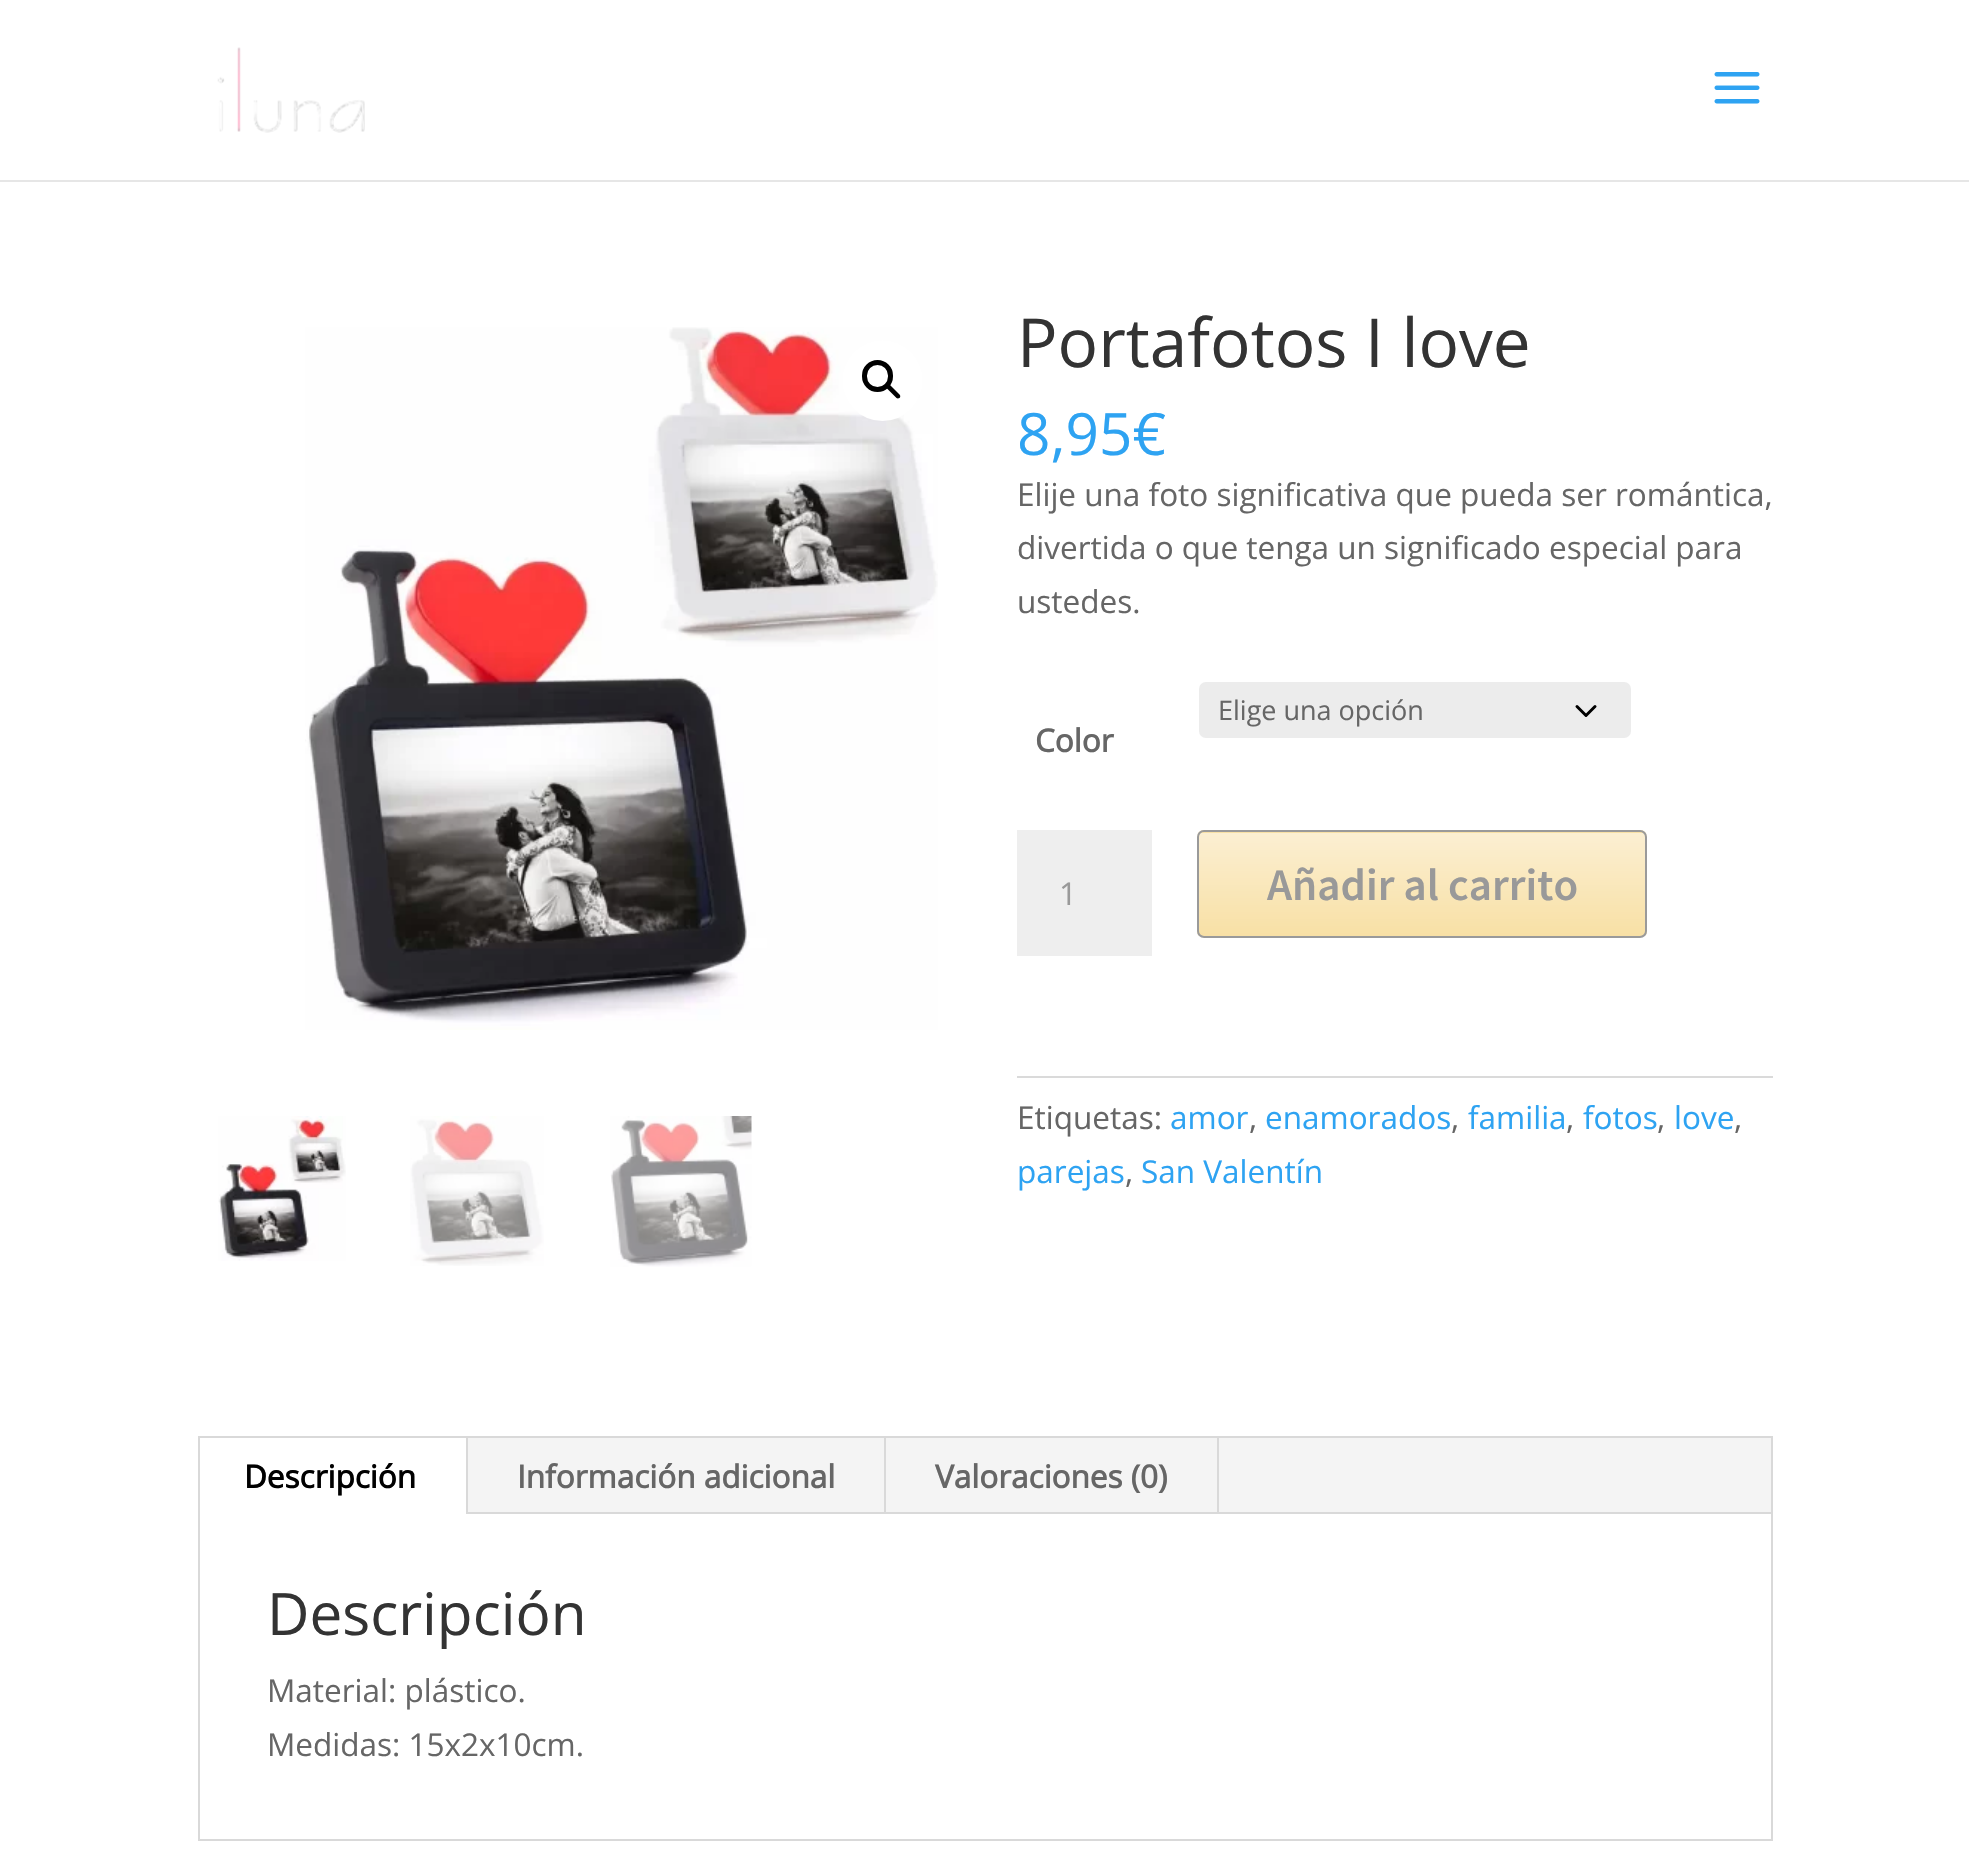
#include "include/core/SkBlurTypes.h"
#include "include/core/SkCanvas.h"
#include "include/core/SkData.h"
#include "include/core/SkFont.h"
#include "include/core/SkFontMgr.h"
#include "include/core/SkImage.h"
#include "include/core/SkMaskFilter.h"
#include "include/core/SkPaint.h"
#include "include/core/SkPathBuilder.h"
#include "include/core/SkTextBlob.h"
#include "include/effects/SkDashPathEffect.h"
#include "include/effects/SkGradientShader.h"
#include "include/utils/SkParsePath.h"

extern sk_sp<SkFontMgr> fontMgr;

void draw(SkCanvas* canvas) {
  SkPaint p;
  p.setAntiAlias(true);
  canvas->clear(SK_ColorWHITE);
  p.setColor(SkColorSetRGB(230, 230, 230));
  canvas->drawRect(SkRect::MakeLTRB(0, 180, 1969, 182), p);
  canvas->drawImageRect(SkImages::DeferredFromEncodedData(SkData::MakeFromFileName("images/1.png")), SkRect::MakeLTRB(217, 47, 365, 133), SkSamplingOptions());
  canvas->drawImageRect(SkImages::DeferredFromEncodedData(SkData::MakeFromFileName("images/2.png")), SkRect::MakeLTRB(1714, 72, 1760, 104), SkSamplingOptions());
  canvas->drawImageRect(SkImages::DeferredFromEncodedData(SkData::MakeFromFileName("images/3.png")), SkRect::MakeLTRB(305, 327, 938, 1030), SkSamplingOptions());
  p.setColor(SK_ColorWHITE);
  canvas->drawCircle(882.5f, 380.5f, 40.5f, p);
  p.setStyle(SkPaint::kStroke_Style);
  p.setStrokeWidth(5);
  p.setColor(SK_ColorBLACK);
  canvas->drawRoundRect(SkRect::MakeLTRB(864.5f, 362.5f, 890.5f, 389.5f), 13, 13, p);
  p.setStyle(SkPaint::kFill_Style);
  canvas->drawPath(SkPathBuilder().moveTo(887, 385).cubicTo(887.5f, 384.5f, 889, 384.5f, 890, 385).lineTo(899.5f, 394.5f).cubicTo(900.5f, 395.5f, 900.5f, 397, 899.5f, 398).cubicTo(898.5f, 398.5f, 897, 398.5f, 896.5f, 398).lineTo(887, 388.5f).cubicTo(886, 387.5f, 886, 386, 887, 385).close().detach(), p);
  canvas->drawImageRect(SkImages::DeferredFromEncodedData(SkData::MakeFromFileName("images/4.png")), SkRect::MakeLTRB(218, 1116, 346, 1261), SkSamplingOptions());
  canvas->drawImageRect(SkImages::DeferredFromEncodedData(SkData::MakeFromFileName("images/5.png")), SkRect::MakeLTRB(410, 1116, 544, 1266), SkSamplingOptions());
  canvas->drawImageRect(SkImages::DeferredFromEncodedData(SkData::MakeFromFileName("images/6.png")), SkRect::MakeLTRB(610, 1116, 752, 1267), SkSamplingOptions());
  p.setColor(SkColorSetRGB(236, 236, 236));
  canvas->drawRoundRect(SkRect::MakeLTRB(1199, 682, 1631, 738), 7, 7, p);
  p.setStyle(SkPaint::kStroke_Style);
  p.setStrokeWidth(3);
  p.setStrokeCap(SkPaint::kRound_Cap);
  p.setStrokeJoin(SkPaint::kRound_Join);
  p.setColor(SK_ColorBLACK);
  canvas->drawPath(SkPathBuilder().moveTo(1577, 706.5f).lineTo(1586, 715.5f).lineTo(1595, 706.5f).detach(), p);
  p.setStyle(SkPaint::kFill_Style);
  p.setColor(SkColorSetRGB(238, 238, 238));
  canvas->drawRect(SkRect::MakeLTRB(1017, 830, 1152, 956), p);
  canvas->save();
  canvas->clipPath(SkPathBuilder().moveTo(1204, 830).lineTo(1640, 830).cubicTo(1644, 830, 1647, 833, 1647, 837).lineTo(1647, 931).cubicTo(1647, 935, 1644, 938, 1640, 938).lineTo(1204, 938).cubicTo(1200, 938, 1197, 935, 1197, 931).lineTo(1197, 837).cubicTo(1197, 833, 1200, 830, 1204, 830).close().detach(), true);
  {
    const SkColor colors[] = {SkColorSetRGB(251, 239, 210), SkColorSetRGB(248, 224, 165)};
    const float stops[] = {0, 1};
    const SkPoint ends[] = {{1422, 729}, {1422, 833}};
    p.setShader(SkGradientShader::MakeLinear(ends, colors, stops, 2, SkTileMode::kClamp));
    p.setAlpha(255);
  }
  canvas->drawRect(SkRect::MakeLTRB(1197, 830, 1647, 833), p);
  {
    const SkColor colors[] = {SkColorSetRGB(251, 239, 210), SkColorSetRGB(248, 224, 165)};
    const float stops[] = {0, 1};
    const SkPoint ends[] = {{1422, 833}, {1422, 936}};
    p.setShader(SkGradientShader::MakeLinear(ends, colors, stops, 2, SkTileMode::kClamp));
    p.setAlpha(255);
  }
  canvas->drawRect(SkRect::MakeLTRB(1197, 833, 1647, 936), p);
  canvas->restore();
  p.setStyle(SkPaint::kStroke_Style);
  p.setStrokeWidth(2);
  p.setStrokeCap(SkPaint::kButt_Cap);
  p.setStrokeJoin(SkPaint::kMiter_Join);
  p.setShader(nullptr);
  p.setColor(SkColorSetRGB(154, 154, 154));
  canvas->drawRoundRect(SkRect::MakeLTRB(1198, 831, 1646, 937), 6, 6, p);
  p.setStyle(SkPaint::kFill_Style);
  p.setColor(SkColorSetRGB(218, 218, 218));
  canvas->drawRect(SkRect::MakeLTRB(1017, 1076, 1773, 1078), p);
  p.setStyle(SkPaint::kStroke_Style);
  p.setColor(SkColorSetRGB(217, 217, 217));
  canvas->drawRect(SkRect::MakeLTRB(199, 1437, 1772, 1840), p);
  p.setStyle(SkPaint::kFill_Style);
  p.setColor(SkColorSetRGB(244, 244, 244));
  canvas->drawRect(SkRect::MakeLTRB(468, 1438, 1771, 1512), p);
  p.setColor(SkColorSetRGB(217, 217, 217));
  canvas->drawRect(SkRect::MakeLTRB(466, 1438, 468, 1514), p);
  canvas->drawRect(SkRect::MakeLTRB(884, 1438, 886, 1514), p);
  canvas->drawRect(SkRect::MakeLTRB(1217, 1438, 1219, 1514), p);
  canvas->drawRect(SkRect::MakeLTRB(468, 1512, 1771, 1514), p);
  SkFont font1(fontMgr->matchFamilyStyle("Open Sans", SkFontStyle::Normal()), 67.5f);
  font1.setSubpixel(true);
  p.setColor(SkColorSetRGB(51, 51, 51));
  canvas->drawString("Portafotos I love", 1017, 367, font1, p);
  SkFont font2(fontMgr->matchFamilyStyle("Open Sans", SkFontStyle::Normal()), 58.5f);
  font2.setSubpixel(true);
  p.setColor(SkColorSetRGB(46, 163, 242));
  canvas->drawString("8,95€", 1017, 455, font2, p);
  SkFont font3(fontMgr->matchFamilyStyle("Open Sans", SkFontStyle::Normal()), 31.5f);
  font3.setSubpixel(true);
  p.setColor(SkColorSetRGB(102, 102, 102));
  canvas->drawString("Elije una foto significativa que pueda ser romántica,", 1017, 506, font3, p);
  canvas->drawString("divertida o que tenga un significado especial para", 1017, 559, font3, p);
  canvas->drawString("ustedes.", 1017, 613, font3, p);
  SkFont font4(fontMgr->matchFamilyStyle("Open Sans", SkFontStyle::Normal()), 27);
  font4.setSubpixel(true);
  canvas->drawString("Elige una opción", 1218, 720, font4, p);
  SkFont font5(fontMgr->matchFamilyStyle("Open Sans", SkFontStyle::Bold()), 31.5f);
  font5.setSubpixel(true);
  canvas->drawString("Color", 1035, 752, font5, p);
  p.setColor(SkColorSetRGB(153, 153, 153));
  canvas->drawString("1", 1059, 905, font3, p);
  SkFont font6(fontMgr->matchFamilyStyle("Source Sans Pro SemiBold", SkFontStyle(600, SkFontStyle::kNormal_Width, SkFontStyle::kUpright_Slant)), 45);
  font6.setSubpixel(true);
  canvas->drawString("Añadir al carrito", 1267, 900, font6, p);
  p.setColor(SkColorSetRGB(102, 102, 102));
  canvas->drawString("Etiquetas:", 1017, 1129, font3, p);
  p.setColor(SkColorSetRGB(46, 163, 242));
  canvas->drawString("amor", 1170, 1129, font3, p);
  p.setColor(SkColorSetRGB(102, 102, 102));
  canvas->drawString(",", 1249, 1129, font3, p);
  p.setColor(SkColorSetRGB(46, 163, 242));
  canvas->drawString("enamorados", 1265, 1129, font3, p);
  p.setColor(SkColorSetRGB(102, 102, 102));
  canvas->drawString(",", 1451, 1129, font3, p);
  p.setColor(SkColorSetRGB(46, 163, 242));
  canvas->drawString("familia", 1468, 1129, font3, p);
  p.setColor(SkColorSetRGB(102, 102, 102));
  canvas->drawString(",", 1566, 1129, font3, p);
  p.setColor(SkColorSetRGB(46, 163, 242));
  canvas->drawString("fotos", 1583, 1129, font3, p);
  p.setColor(SkColorSetRGB(102, 102, 102));
  canvas->drawString(",", 1657, 1129, font3, p);
  p.setColor(SkColorSetRGB(46, 163, 242));
  canvas->drawString("love", 1674, 1129, font3, p);
  p.setColor(SkColorSetRGB(102, 102, 102));
  canvas->drawString(",", 1734, 1129, font3, p);
  p.setColor(SkColorSetRGB(46, 163, 242));
  canvas->drawString("parejas", 1017, 1183, font3, p);
  p.setColor(SkColorSetRGB(102, 102, 102));
  canvas->drawString(",", 1125, 1183, font3, p);
  p.setColor(SkColorSetRGB(46, 163, 242));
  canvas->drawString("San Valentín", 1141, 1183, font3, p);
  p.setColor(SK_ColorBLACK);
  canvas->drawString("Descripción", 244, 1488, font5, p);
  p.setColor(SkColorSetRGB(102, 102, 102));
  canvas->drawString("Información adicional", 517, 1488, font5, p);
  canvas->drawString("Valoraciones (0)", 935, 1488, font5, p);
  p.setColor(SkColorSetRGB(51, 51, 51));
  canvas->drawString("Descripción", 267, 1635, font2, p);
  p.setColor(SkColorSetRGB(102, 102, 102));
  canvas->drawString("Material: plástico.", 267, 1702, font3, p);
  canvas->drawString("Medidas: 15x2x10cm.", 267, 1756, font3, p);
}
